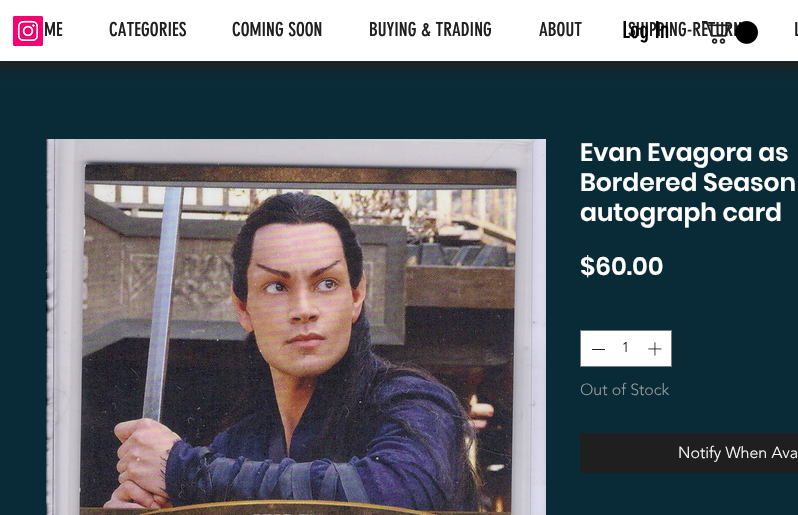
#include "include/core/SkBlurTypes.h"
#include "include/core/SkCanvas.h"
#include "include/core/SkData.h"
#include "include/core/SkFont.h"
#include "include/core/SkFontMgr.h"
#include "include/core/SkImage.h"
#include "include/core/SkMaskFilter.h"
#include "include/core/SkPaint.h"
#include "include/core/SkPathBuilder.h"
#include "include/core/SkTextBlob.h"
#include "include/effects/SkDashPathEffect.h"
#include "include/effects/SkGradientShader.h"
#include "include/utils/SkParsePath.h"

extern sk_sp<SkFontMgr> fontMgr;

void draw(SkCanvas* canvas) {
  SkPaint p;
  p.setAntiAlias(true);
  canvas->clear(SkColorSetRGB(9, 43, 56));
  p.setColor(SkColorSetRGB(31, 31, 31));
  p.setMaskFilter(SkMaskFilter::MakeBlur(kNormal_SkBlurStyle, 6.5f));
  canvas->drawRect(SkRect::MakeLTRB(-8, -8, 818, 69), p);
  p.setMaskFilter(nullptr);
  p.setColor(SK_ColorWHITE);
  canvas->drawRect(SkRect::MakeLTRB(0, 0, 798, 61), p);
  canvas->drawImageRect(SkImages::DeferredFromEncodedData(SkData::MakeFromFileName("images/1.png")), SkRect::MakeLTRB(13, 16, 43, 46), SkSamplingOptions());
  canvas->drawImageRect(SkImages::DeferredFromEncodedData(SkData::MakeFromFileName("images/3.png")), SkRect::MakeLTRB(46, 139, 546, 515), SkSamplingOptions());
  canvas->drawRect(SkRect::MakeLTRB(580.5f, 330.5f, 671.5f, 366.5f), p);
  p.setStyle(SkPaint::kStroke_Style);
  p.setStrokeWidth(1);
  p.setColor(SkColorSetRGB(121, 121, 121));
  canvas->drawRect(SkRect::MakeLTRB(580.5f, 330.5f, 671.5f, 366.5f), p);
  p.setStyle(SkPaint::kFill_Style);
  p.setColor(SkColorSetRGB(31, 31, 31));
  canvas->drawRect(SkRect::MakeLTRB(592, 349, 605, 350), p);
  canvas->drawImageRect(SkImages::DeferredFromEncodedData(SkData::MakeFromFileName("images/4.png")), SkRect::MakeLTRB(648, 342, 662, 356), SkSamplingOptions());
  canvas->drawRect(SkRect::MakeLTRB(580, 433, 798, 473), p);
  SkFont font1(fontMgr->matchFamilyStyle("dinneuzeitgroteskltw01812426", SkFontStyle::Normal()), 19);
  font1.setSubpixel(true);
  canvas->drawString("ME", 44, 36, font1, p);
  canvas->drawString("CATEGORIES", 109, 36, font1, p);
  canvas->drawString("COMING SOON", 232, 36, font1, p);
  canvas->drawString("BUYING & TRADING", 369, 36, font1, p);
  canvas->drawString("ABOUT", 539, 36, font1, p);
  canvas->drawString("SHIPPING-RETURN", 628, 36, font1, p);
  canvas->drawString("L", 794, 36, font1, p);
  SkFont font2(fontMgr->matchFamilyStyle("dinneuzeitgroteskltw01812426", SkFontStyle::Normal()), 23);
  font2.setSubpixel(true);
  p.setColor(SK_ColorBLACK);
  canvas->drawString("Log In", 622, 38, font2, p);
  canvas->drawImageRect(SkImages::DeferredFromEncodedData(SkData::MakeFromFileName("images/2.png")), SkRect::MakeLTRB(702, 21, 758, 44), SkSamplingOptions());
  SkFont font3(fontMgr->matchFamilyStyle("Poppins", SkFontStyle(600, SkFontStyle::kNormal_Width, SkFontStyle::kUpright_Slant)), 25);
  font3.setSubpixel(true);
  p.setColor(SK_ColorWHITE);
  canvas->drawString("Evan Evagora as", 580, 161, font3, p);
  canvas->drawString("Bordered Season", 580, 191, font3, p);
  canvas->drawString("autograph card", 580, 221, font3, p);
  canvas->drawString("$60.00", 580, 275, font3, p);
  SkFont font4(fontMgr->matchFamilyStyle("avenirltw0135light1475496", SkFontStyle(300, SkFontStyle::kNormal_Width, SkFontStyle::kUpright_Slant)), 14);
  font4.setSubpixel(true);
  p.setColor(SkColorSetRGB(31, 31, 31));
  canvas->drawString("1", 622, 352, font4, p);
  SkFont font5(fontMgr->matchFamilyStyle("avenirltw0135light1475496", SkFontStyle(300, SkFontStyle::kNormal_Width, SkFontStyle::kUpright_Slant)), 16);
  font5.setSubpixel(true);
  p.setColor(SkColorSetRGB(153, 153, 151));
  canvas->drawString("Out of Stock", 580, 395, font5, p);
  p.setColor(SK_ColorWHITE);
  canvas->drawString("Notify When Ava", 678, 458, font5, p);
}
